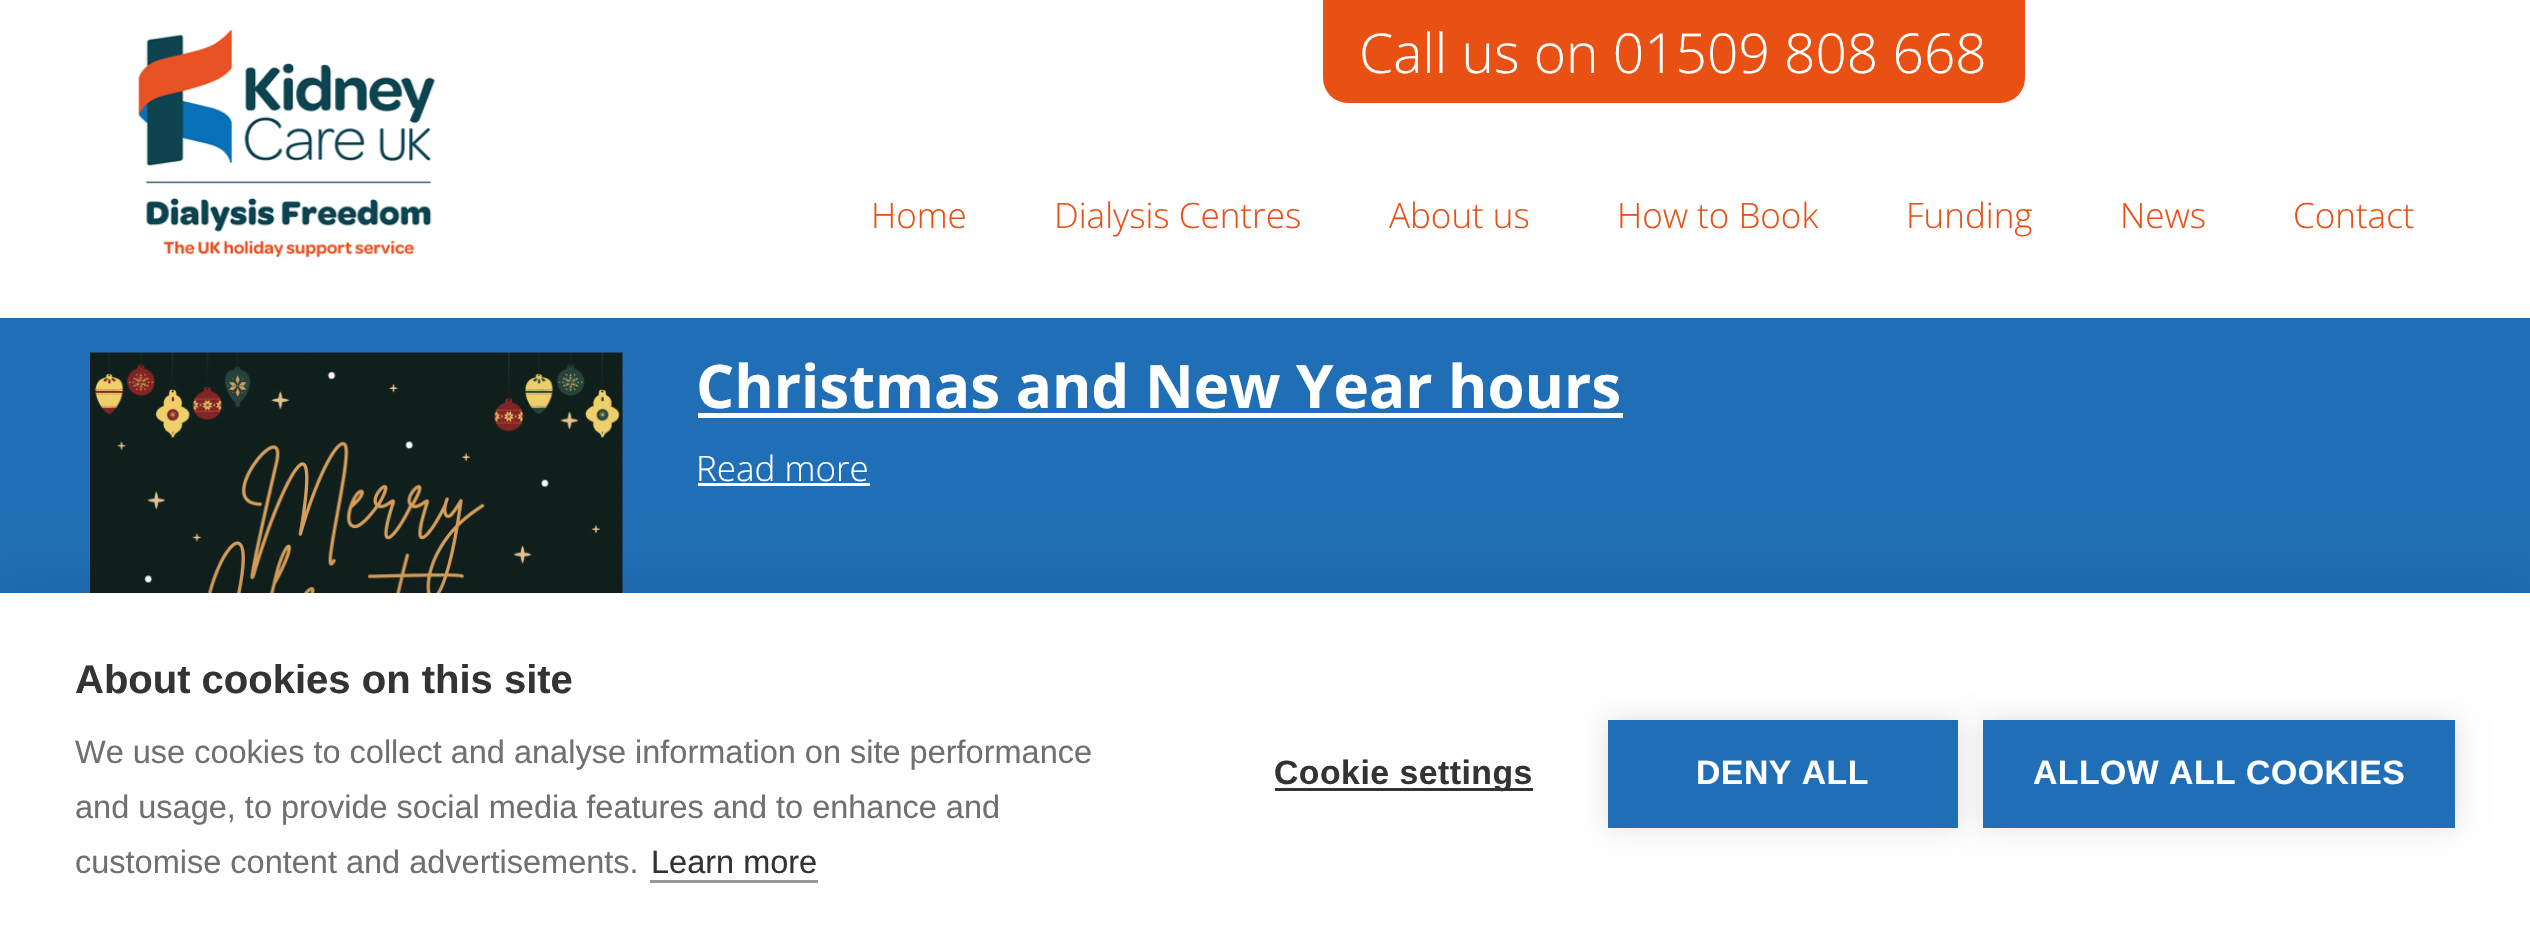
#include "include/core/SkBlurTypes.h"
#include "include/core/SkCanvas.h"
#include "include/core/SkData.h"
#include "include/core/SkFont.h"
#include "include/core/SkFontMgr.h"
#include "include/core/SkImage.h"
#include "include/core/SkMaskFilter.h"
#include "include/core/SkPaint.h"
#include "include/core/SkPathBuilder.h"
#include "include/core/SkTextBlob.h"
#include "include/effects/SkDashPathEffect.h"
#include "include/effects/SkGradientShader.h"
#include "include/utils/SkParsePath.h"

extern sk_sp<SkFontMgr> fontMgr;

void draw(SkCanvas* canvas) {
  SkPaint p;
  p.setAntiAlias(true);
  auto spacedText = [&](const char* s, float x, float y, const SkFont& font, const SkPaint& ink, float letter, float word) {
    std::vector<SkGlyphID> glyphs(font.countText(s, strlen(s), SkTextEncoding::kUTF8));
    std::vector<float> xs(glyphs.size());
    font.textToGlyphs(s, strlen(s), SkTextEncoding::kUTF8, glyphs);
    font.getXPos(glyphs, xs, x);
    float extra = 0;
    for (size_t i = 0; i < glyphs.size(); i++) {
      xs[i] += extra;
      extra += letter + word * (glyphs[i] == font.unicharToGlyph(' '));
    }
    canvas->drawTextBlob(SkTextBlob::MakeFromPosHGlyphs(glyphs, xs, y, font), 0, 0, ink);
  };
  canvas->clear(SkColorSetRGB(32, 110, 181));
  p.setColor(SK_ColorWHITE);
  canvas->drawRect(SkRect::MakeLTRB(0, 0, 2530, 318), p);
  p.setColor(SkColorSetRGB(232, 80, 20));
  canvas->drawRoundRect(SkRect::MakeLTRB(1323, -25, 2025, 103), 25, 25, p);
  canvas->drawImageRect(SkImages::DeferredFromEncodedData(SkData::MakeFromFileName("images/1.png")), SkRect::MakeLTRB(138, 29, 436, 258), SkSamplingOptions());
  canvas->drawImageRect(SkImages::DeferredFromEncodedData(SkData::MakeFromFileName("images/2.png")), SkRect::MakeLTRB(90, 352, 623, 593), SkSamplingOptions());
  p.setColor(SK_ColorWHITE);
  canvas->drawRect(SkRect::MakeLTRB(698, 413, 1623, 418), p);
  canvas->drawRect(SkRect::MakeLTRB(698, 483, 870, 486), p);
  p.setColor(SkColorSetARGB(26, 0, 0, 0));
  p.setMaskFilter(SkMaskFilter::MakeBlur(kNormal_SkBlurStyle, 25));
  canvas->drawRect(SkRect::MakeLTRB(0, 593, 2530, 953), p);
  p.setMaskFilter(nullptr);
  p.setColor(SK_ColorWHITE);
  canvas->drawRect(SkRect::MakeLTRB(0, 593, 2530, 951), p);
  p.setColor(SkColorSetRGB(153, 153, 153));
  canvas->drawRect(SkRect::MakeLTRB(650, 880, 818, 883), p);
  p.setColor(SkColorSetRGB(51, 51, 51));
  canvas->drawRect(SkRect::MakeLTRB(1275, 788, 1533, 791), p);
  p.setColor(SkColorSetARGB(31, 0, 0, 0));
  p.setMaskFilter(SkMaskFilter::MakeBlur(kNormal_SkBlurStyle, 12.5f));
  canvas->drawRect(SkRect::MakeLTRB(1608, 720, 1958, 828), p);
  p.setMaskFilter(nullptr);
  p.setColor(SkColorSetRGB(32, 110, 181));
  canvas->drawRect(SkRect::MakeLTRB(1608, 720, 1958, 828), p);
  p.setColor(SkColorSetARGB(31, 0, 0, 0));
  p.setMaskFilter(SkMaskFilter::MakeBlur(kNormal_SkBlurStyle, 12.5f));
  canvas->drawRect(SkRect::MakeLTRB(1983, 720, 2455, 828), p);
  p.setMaskFilter(nullptr);
  p.setColor(SkColorSetRGB(32, 110, 181));
  canvas->drawRect(SkRect::MakeLTRB(1983, 720, 2455, 828), p);
  SkFont font1(fontMgr->matchFamilyStyle("Open Sans", SkFontStyle(300, SkFontStyle::kNormal_Width, SkFontStyle::kUpright_Slant)), 55);
  font1.setSubpixel(true);
  p.setColor(SK_ColorWHITE);
  canvas->drawString("Call us on 01509 808 668", 1359, 73, font1, p);
  SkFont font2(fontMgr->matchFamilyStyle("Open Sans", SkFontStyle(300, SkFontStyle::kNormal_Width, SkFontStyle::kUpright_Slant)), 35);
  font2.setSubpixel(true);
  p.setColor(SkColorSetRGB(232, 80, 20));
  canvas->drawString("Home", 871, 228, font2, p);
  canvas->drawString("Dialysis Centres", 1054, 228, font2, p);
  canvas->drawString("About us", 1389, 228, font2, p);
  canvas->drawString("How to Book", 1617, 228, font2, p);
  canvas->drawString("Funding", 1906, 228, font2, p);
  canvas->drawString("News", 2120, 228, font2, p);
  canvas->drawString("Contact", 2293, 228, font2, p);
  SkFont font3(fontMgr->matchFamilyStyle("Open Sans", SkFontStyle::Bold()), 60);
  font3.setSubpixel(true);
  p.setColor(SK_ColorWHITE);
  canvas->drawString("Christmas and New Year hours", 696, 408, font3, p);
  canvas->drawString("Read more", 696, 481, font2, p);
  SkFont font4(fontMgr->matchFamilyStyle("Liberation Sans", SkFontStyle::Bold()), 40);
  font4.setSubpixel(true);
  p.setColor(SkColorSetRGB(51, 51, 51));
  canvas->drawString("About cookies on this site", 75, 693, font4, p);
  SkFont font5(fontMgr->matchFamilyStyle("Liberation Sans", SkFontStyle::Normal()), 32.5f);
  font5.setSubpixel(true);
  p.setColor(SkColorSetRGB(112, 112, 112));
  canvas->drawString("We use cookies to collect and analyse information on site performance", 75, 763, font5, p);
  canvas->drawString("and usage, to provide social media features and to enhance and", 75, 818, font5, p);
  canvas->drawString("customise content and advertisements.", 75, 873, font5, p);
  p.setColor(SkColorSetRGB(51, 51, 51));
  canvas->drawString("Learn more", 651, 873, font5, p);
  SkFont font6(fontMgr->matchFamilyStyle("Liberation Sans", SkFontStyle::Bold()), 33.75f);
  font6.setSubpixel(true);
  spacedText("Cookie settings", 1274, 784, font6, p, 0.5f, 0);
  p.setColor(SK_ColorWHITE);
  spacedText("DENY ALL", 1696, 784, font6, p, 0.5f, 0);
  spacedText("ALLOW ALL COOKIES", 2033, 784, font6, p, 0.5f, 0);
}
